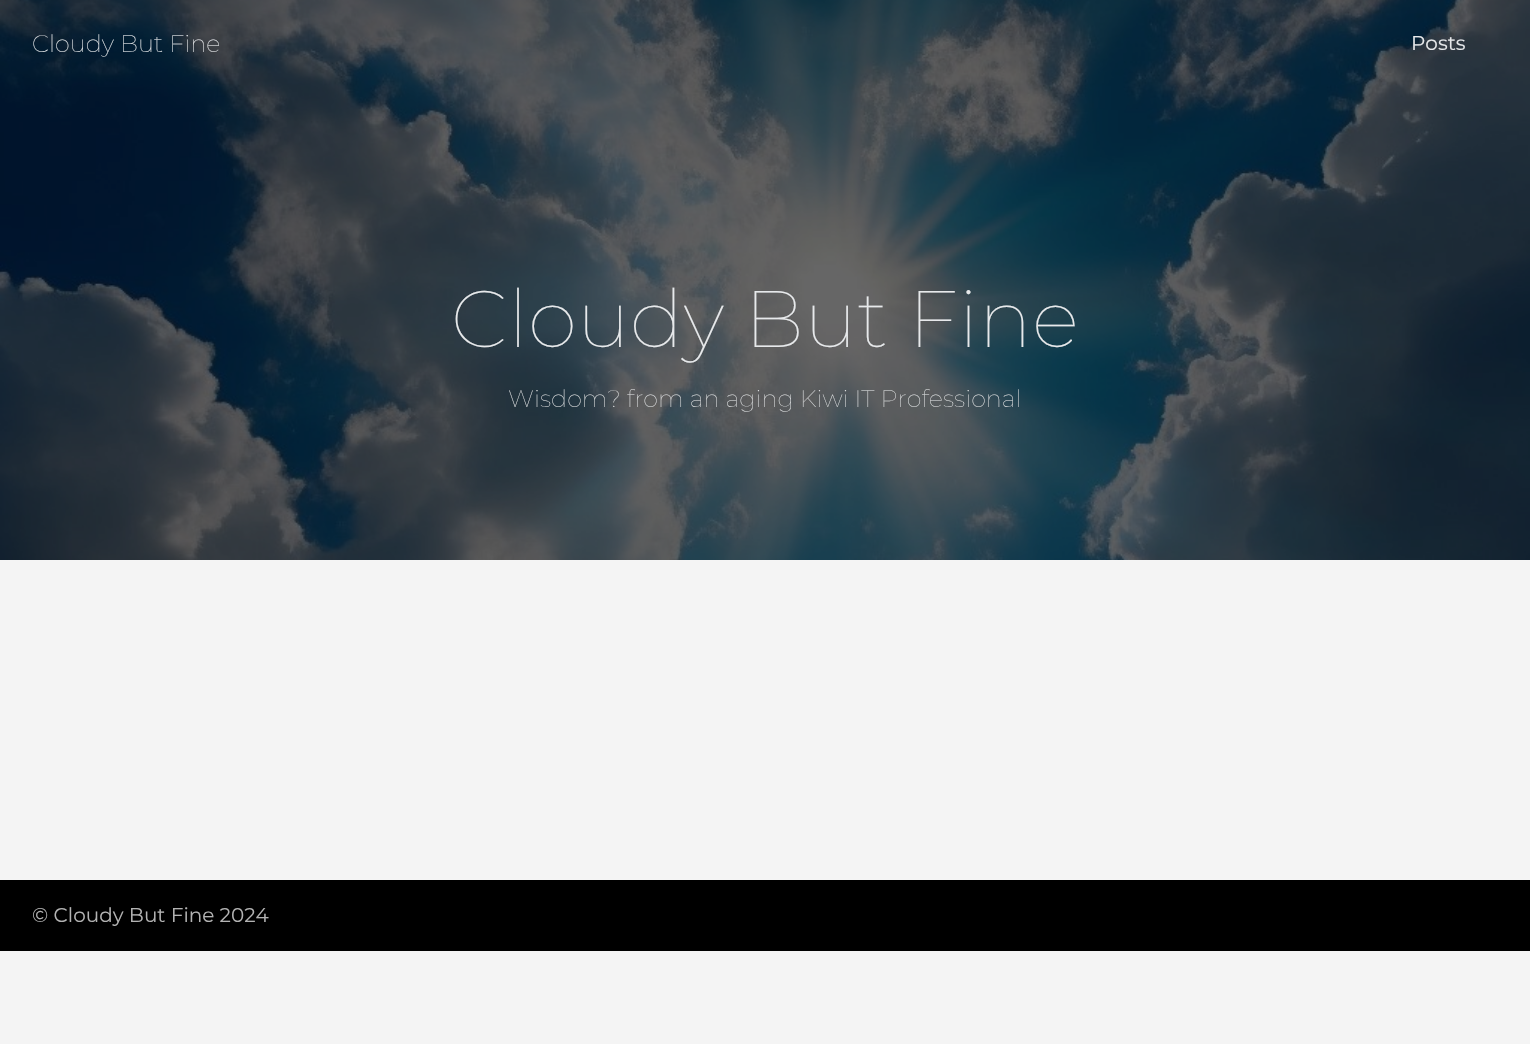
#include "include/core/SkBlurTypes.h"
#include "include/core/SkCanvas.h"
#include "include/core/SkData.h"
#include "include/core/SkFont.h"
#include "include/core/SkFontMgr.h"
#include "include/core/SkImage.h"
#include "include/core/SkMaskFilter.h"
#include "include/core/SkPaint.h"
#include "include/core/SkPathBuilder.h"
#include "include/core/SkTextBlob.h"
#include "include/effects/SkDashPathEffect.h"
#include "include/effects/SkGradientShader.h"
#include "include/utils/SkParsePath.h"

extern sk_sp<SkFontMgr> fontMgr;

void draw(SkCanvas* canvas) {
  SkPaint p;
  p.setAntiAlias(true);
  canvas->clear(SkColorSetRGB(244, 244, 244));
  canvas->drawImageRect(SkImages::DeferredFromEncodedData(SkData::MakeFromFileName("images/1.png")), SkRect::MakeLTRB(0, 0, 1530, 560), SkSamplingOptions());
  p.setColor(SK_ColorBLACK);
  canvas->drawRect(SkRect::MakeLTRB(0, 880, 1530, 951), p);
  SkFont font1(fontMgr->matchFamilyStyle("Montserrat", SkFontStyle(100, SkFontStyle::kNormal_Width, SkFontStyle::kUpright_Slant)), 24);
  font1.setSubpixel(true);
  p.setColor(SkColorSetRGB(231, 233, 235));
  canvas->drawString("Cloudy But Fine", 32, 52, font1, p);
  SkFont font2(fontMgr->matchFamilyStyle("Montserrat", SkFontStyle::Normal()), 20);
  font2.setSubpixel(true);
  canvas->drawString("Posts", 1411, 50, font2, p);
  SkFont font3(fontMgr->matchFamilyStyle("Montserrat", SkFontStyle(100, SkFontStyle::kNormal_Width, SkFontStyle::kUpright_Slant)), 80);
  font3.setSubpixel(true);
  canvas->drawString("Cloudy But Fine", 451, 347, font3, p);
  p.setColor(SkColorSetRGB(218, 220, 221));
  canvas->drawString("Wisdom? from an aging Kiwi IT Professional", 508, 407, font1, p);
  p.setColor(SkColorSetRGB(179, 179, 179));
  canvas->drawString("© Cloudy But Fine 2024", 32, 922, font2, p);
}
